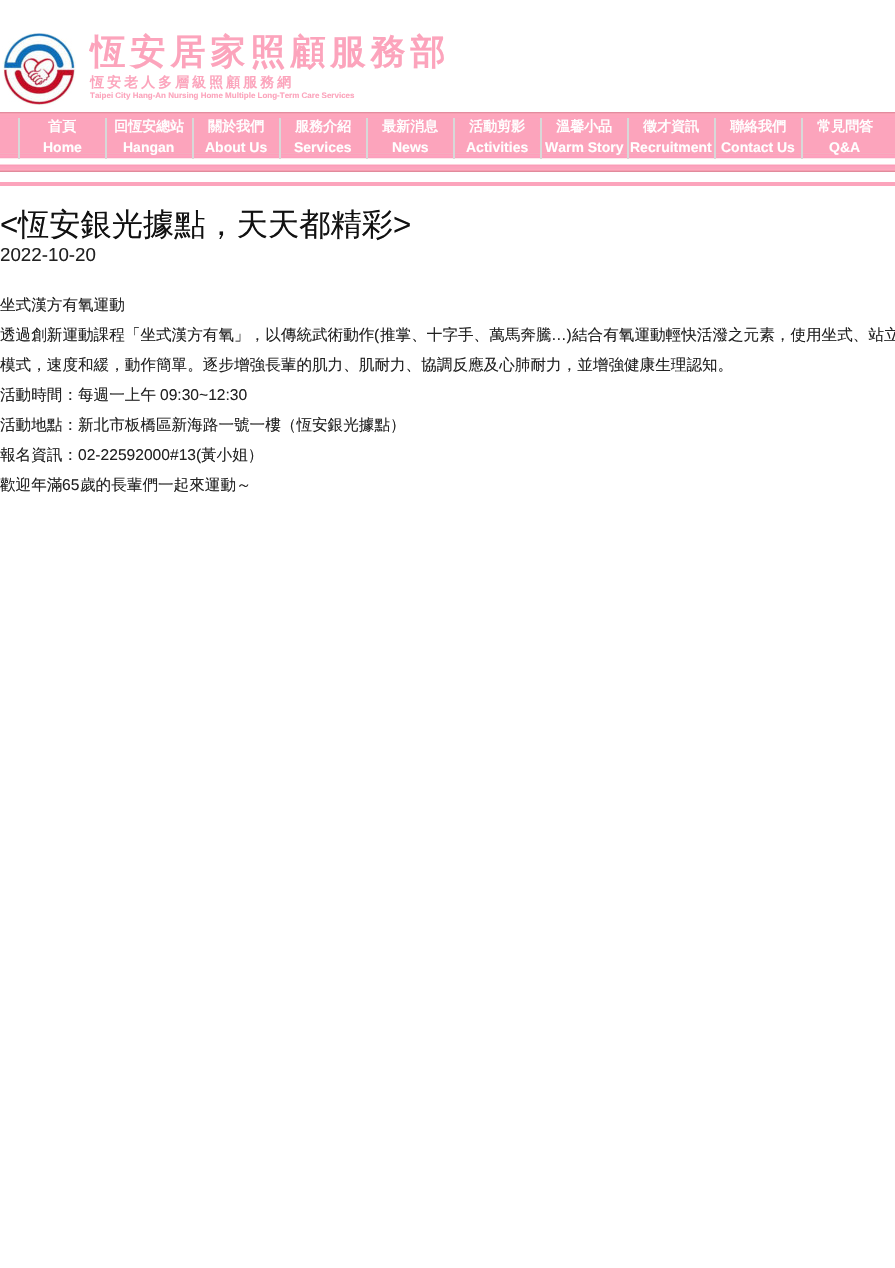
#include "include/core/SkBlurTypes.h"
#include "include/core/SkCanvas.h"
#include "include/core/SkData.h"
#include "include/core/SkFont.h"
#include "include/core/SkFontMgr.h"
#include "include/core/SkImage.h"
#include "include/core/SkMaskFilter.h"
#include "include/core/SkPaint.h"
#include "include/core/SkPathBuilder.h"
#include "include/core/SkTextBlob.h"
#include "include/effects/SkDashPathEffect.h"
#include "include/effects/SkGradientShader.h"
#include "include/utils/SkParsePath.h"

extern sk_sp<SkFontMgr> fontMgr;

void draw(SkCanvas* canvas) {
  SkPaint p;
  p.setAntiAlias(true);
  auto spacedText = [&](const char* s, float x, float y, const SkFont& font, const SkPaint& ink, float letter, float word) {
    std::vector<SkGlyphID> glyphs(font.countText(s, strlen(s), SkTextEncoding::kUTF8));
    std::vector<float> xs(glyphs.size());
    font.textToGlyphs(s, strlen(s), SkTextEncoding::kUTF8, glyphs);
    font.getXPos(glyphs, xs, x);
    float extra = 0;
    for (size_t i = 0; i < glyphs.size(); i++) {
      xs[i] += extra;
      extra += letter + word * (glyphs[i] == font.unicharToGlyph(' '));
    }
    canvas->drawTextBlob(SkTextBlob::MakeFromPosHGlyphs(glyphs, xs, y, font), 0, 0, ink);
  };
  canvas->clear(SK_ColorWHITE);
  canvas->drawImageRect(SkImages::DeferredFromEncodedData(SkData::MakeFromFileName("images/1.png")), SkRect::MakeLTRB(2, 33, 76, 108), SkSamplingOptions());
  canvas->drawImageRect(SkImages::DeferredFromEncodedData(SkData::MakeFromFileName("images/2.png")), SkRect::MakeLTRB(0, 112, 895, 172), SkSamplingOptions());
  p.setColor(SkColorSetRGB(216, 216, 216));
  canvas->drawRect(SkRect::MakeLTRB(18, 118, 20, 159), p);
  canvas->drawRect(SkRect::MakeLTRB(105, 118, 107, 159), p);
  canvas->drawRect(SkRect::MakeLTRB(192, 118, 194, 159), p);
  canvas->drawRect(SkRect::MakeLTRB(279, 118, 281, 159), p);
  canvas->drawRect(SkRect::MakeLTRB(366, 118, 368, 159), p);
  canvas->drawRect(SkRect::MakeLTRB(453, 118, 455, 159), p);
  canvas->drawRect(SkRect::MakeLTRB(540, 118, 542, 159), p);
  canvas->drawRect(SkRect::MakeLTRB(627, 118, 629, 159), p);
  canvas->drawRect(SkRect::MakeLTRB(714, 118, 716, 159), p);
  canvas->drawRect(SkRect::MakeLTRB(801, 118, 803, 159), p);
  p.setColor(SkColorSetRGB(252, 164, 188));
  canvas->drawRect(SkRect::MakeLTRB(0, 182, 895, 186), p);
  SkFont font1(fontMgr->matchFamilyStyle("WenQuanYi Zen Hei", SkFontStyle::Bold()), 35);
  font1.setSubpixel(true);
  spacedText("恆安居家照顧服務部", 90, 64, font1, p, 5, 0);
  SkFont font2(fontMgr->matchFamilyStyle("WenQuanYi Zen Hei", SkFontStyle::Bold()), 14);
  font2.setSubpixel(true);
  spacedText("恆安老人多層級照顧服務網", 90, 87, font2, p, 3, 0);
  SkFont font3(fontMgr->matchFamilyStyle("Liberation Sans", SkFontStyle::Bold()), 8);
  font3.setSubpixel(true);
  canvas->drawString("Taipei City Hang-An Nursing Home Multiple Long-Term Care Services", 90, 98, font3, p);
  p.setColor(SK_ColorWHITE);
  canvas->drawString("首頁", 48, 131, font2, p);
  SkFont font4(fontMgr->matchFamilyStyle("Liberation Sans", SkFontStyle::Bold()), 14);
  font4.setSubpixel(true);
  canvas->drawString("Home", 43, 152, font4, p);
  canvas->drawString("回恆安總站", 114, 131, font2, p);
  canvas->drawString("Hangan", 123, 152, font4, p);
  canvas->drawString("關於我們", 208, 131, font2, p);
  canvas->drawString("About Us", 205, 152, font4, p);
  canvas->drawString("服務介紹", 295, 131, font2, p);
  canvas->drawString("Services", 294, 152, font4, p);
  canvas->drawString("最新消息", 382, 131, font2, p);
  canvas->drawString("News", 392, 152, font4, p);
  canvas->drawString("活動剪影", 469, 131, font2, p);
  canvas->drawString("Activities", 466, 152, font4, p);
  canvas->drawString("溫馨小品", 556, 131, font2, p);
  canvas->drawString("Warm Story", 545, 152, font4, p);
  canvas->drawString("徵才資訊", 643, 131, font2, p);
  canvas->drawString("Recruitment", 630, 152, font4, p);
  canvas->drawString("聯絡我們", 730, 131, font2, p);
  canvas->drawString("Contact Us", 721, 152, font4, p);
  canvas->drawString("常見問答", 817, 131, font2, p);
  canvas->drawString("Q&A", 829, 152, font4, p);
  SkFont font5(fontMgr->matchFamilyStyle("Liberation Sans", SkFontStyle::Normal()), 31.25f);
  font5.setSubpixel(true);
  p.setColor(SkColorSetRGB(17, 17, 17));
  canvas->drawString("<", 0, 235, font5, p);
  SkFont font6(fontMgr->matchFamilyStyle("WenQuanYi Zen Hei", SkFontStyle(500, SkFontStyle::kNormal_Width, SkFontStyle::kUpright_Slant)), 31.25f);
  font6.setSubpixel(true);
  canvas->drawString("恆安銀光據點，天天都精彩", 18, 235, font6, p);
  canvas->drawString(">", 393, 235, font5, p);
  SkFont font7(fontMgr->matchFamilyStyle("Liberation Sans", SkFontStyle::Normal()), 18.75f);
  font7.setSubpixel(true);
  p.setColor(SkColorSetRGB(34, 34, 34));
  canvas->drawString("2022-10-20", 0, 261, font7, p);
  SkFont font8(fontMgr->matchFamilyStyle("WenQuanYi Zen Hei", SkFontStyle(500, SkFontStyle::kNormal_Width, SkFontStyle::kUpright_Slant)), 15.6f);
  font8.setSubpixel(true);
  canvas->drawString("坐式漢方有氧運動", 0, 310, font8, p);
  canvas->drawString("透過創新運動課程「坐式漢方有氧」，以傳統武術動作", 0, 340, font8, p);
  SkFont font9(fontMgr->matchFamilyStyle("Liberation Sans", SkFontStyle::Normal()), 15.6f);
  font9.setSubpixel(true);
  canvas->drawString("(", 374, 340, font9, p);
  canvas->drawString("推掌、十字手、萬馬奔騰", 380, 340, font8, p);
  canvas->drawString("…)", 551, 340, font9, p);
  canvas->drawString("結合有氧運動輕快活潑之元素，使用坐式、站立", 572, 340, font8, p);
  canvas->drawString("模式，速度和緩，動作簡單。逐步增強長輩的肌力、肌耐力、協調反應及心肺耐力，並增強健康生理認知。", 0, 370, font8, p);
  canvas->drawString("活動時間：每週一上午", 0, 400, font8, p);
  canvas->drawString("09:30~12:30", 160, 400, font9, p);
  canvas->drawString("活動地點：新北市板橋區新海路一號一樓（恆安銀光據點）", 0, 430, font8, p);
  canvas->drawString("報名資訊：", 0, 460, font8, p);
  canvas->drawString("02-22592000#13(", 78, 460, font9, p);
  canvas->drawString("黃小姐）", 201, 460, font8, p);
  canvas->drawString("歡迎年滿", 0, 490, font8, p);
  canvas->drawString("65", 62, 490, font9, p);
  canvas->drawString("歲的長輩們一起來運動～", 80, 490, font8, p);
}
